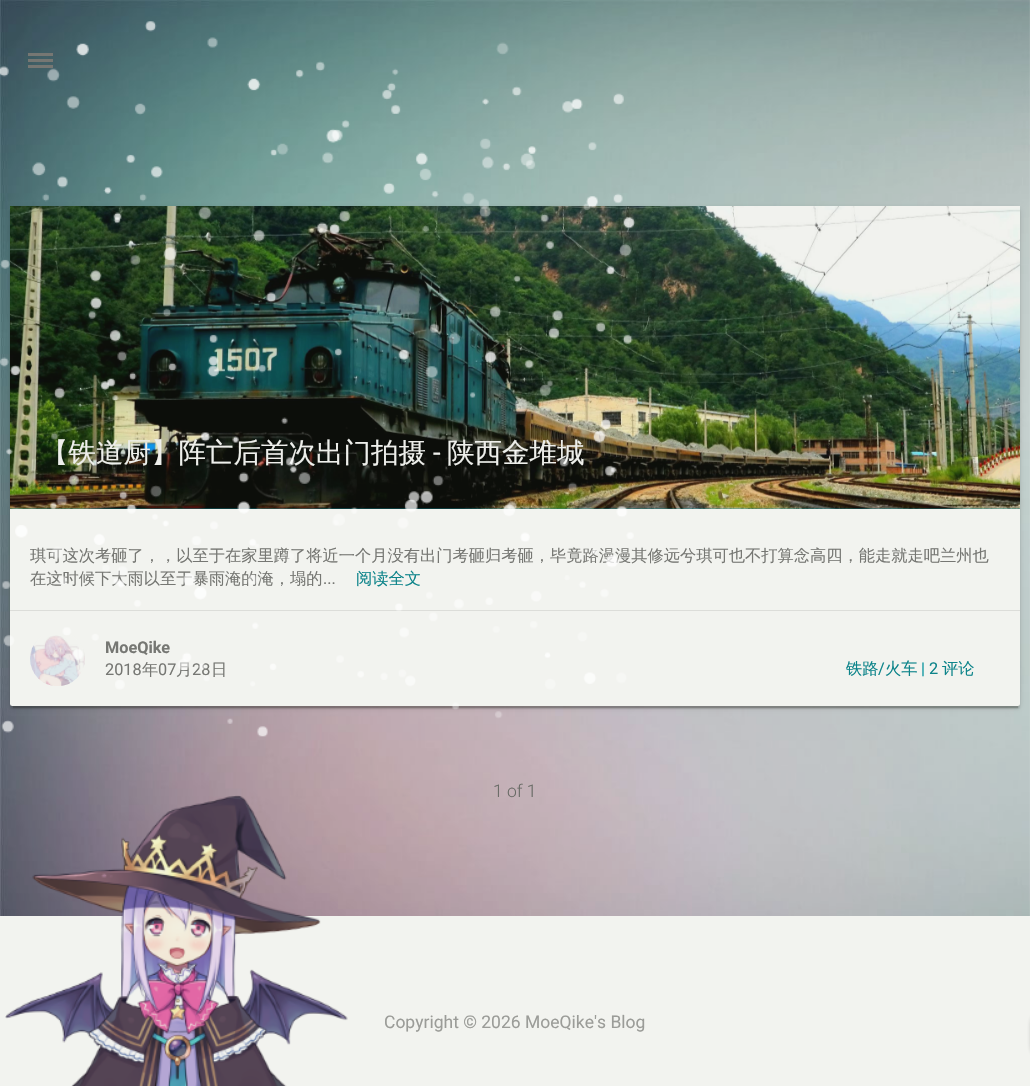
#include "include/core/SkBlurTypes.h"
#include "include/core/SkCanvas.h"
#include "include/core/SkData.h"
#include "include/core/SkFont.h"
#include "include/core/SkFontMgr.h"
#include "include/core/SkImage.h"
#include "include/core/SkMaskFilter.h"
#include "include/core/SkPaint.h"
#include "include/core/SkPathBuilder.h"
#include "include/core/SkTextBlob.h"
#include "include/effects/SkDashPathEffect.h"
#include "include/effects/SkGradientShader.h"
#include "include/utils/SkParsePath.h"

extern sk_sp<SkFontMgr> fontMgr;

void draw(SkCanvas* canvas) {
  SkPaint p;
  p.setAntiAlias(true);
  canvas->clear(SK_ColorWHITE);
  canvas->drawImageRect(SkImages::DeferredFromEncodedData(SkData::MakeFromFileName("images/1.png")), SkRect::MakeLTRB(0, 0, 1030, 916), SkSamplingOptions());
  p.setColor(SkColorSetRGB(118, 119, 115));
  canvas->drawRect(SkRect::MakeLTRB(28, 59, 53, 62), p);
  canvas->drawRect(SkRect::MakeLTRB(28, 53, 53, 56), p);
  canvas->drawRect(SkRect::MakeLTRB(28, 65, 53, 68), p);
  p.setColor(SkColorSetARGB(31, 13, 14, 10));
  p.setMaskFilter(SkMaskFilter::MakeBlur(kNormal_SkBlurStyle, 3));
  canvas->drawRoundRect(SkRect::MakeLTRB(10, 208, 1020, 708), 2.5f, 2.5f, p);
  p.setMaskFilter(nullptr);
  p.setColor(SkColorSetARGB(51, 13, 14, 10));
  p.setMaskFilter(SkMaskFilter::MakeBlur(kNormal_SkBlurStyle, 0.5f));
  canvas->drawRect(SkRect::MakeLTRB(13, 213, 1018, 708), p);
  p.setMaskFilter(nullptr);
  p.setColor(SkColorSetARGB(36, 13, 14, 10));
  p.setMaskFilter(SkMaskFilter::MakeBlur(kNormal_SkBlurStyle, 1));
  canvas->drawRoundRect(SkRect::MakeLTRB(10, 209, 1020, 709), 2.5f, 2.5f, p);
  p.setMaskFilter(nullptr);
  p.setColor(SkColorSetRGB(242, 243, 239));
  canvas->drawRoundRect(SkRect::MakeLTRB(10, 206, 1020, 706), 2.5f, 2.5f, p);
  p.setColor(SkColorSetRGB(13, 150, 160));
  canvas->drawRect(SkRect::MakeLTRB(10, 508, 1020, 509), p);
  canvas->drawImageRect(SkImages::DeferredFromEncodedData(SkData::MakeFromFileName("images/3.png")), SkRect::MakeLTRB(10, 206, 1020, 509), SkSamplingOptions());
  p.setColor(SkColorSetRGB(220, 221, 217));
  canvas->drawRect(SkRect::MakeLTRB(10, 610, 1020, 611), p);
  canvas->drawImageRect(SkImages::DeferredFromEncodedData(SkData::MakeFromFileName("images/4.png")), SkRect::MakeLTRB(30, 635, 85, 686), SkSamplingOptions());
  p.setColor(SkColorSetRGB(242, 243, 239));
  canvas->drawRect(SkRect::MakeLTRB(0, 916, 1030, 1086), p);
  p.setColor(SkColorSetARGB(61, 13, 14, 10));
  p.setMaskFilter(SkMaskFilter::MakeBlur(kNormal_SkBlurStyle, 2));
  canvas->drawRoundRect(SkRect::MakeLTRB(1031, 1010, 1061, 1060), 25, 25, p);
  p.setMaskFilter(nullptr);
  canvas->drawImageRect(SkImages::DeferredFromEncodedData(SkData::MakeFromFileName("images/5.png")), SkRect::MakeLTRB(5, 795, 348, 1086), SkSamplingOptions());
  SkFont font1(fontMgr->matchFamilyStyle("WenQuanYi Zen Hei", SkFontStyle(500, SkFontStyle::kNormal_Width, SkFontStyle::kUpright_Slant)), 27.5f);
  font1.setSubpixel(true);
  p.setColor(SkColorSetRGB(238, 239, 235));
  canvas->drawString("【铁道厨】阵亡后首次出门拍摄", 41, 462, font1, p);
  SkFont font2(fontMgr->matchFamilyStyle("Roboto", SkFontStyle::Normal()), 27.5f);
  font2.setSubpixel(true);
  canvas->drawString("-", 433, 462, font2, p);
  canvas->drawString("陕西金堆城", 447, 462, font1, p);
  SkFont font3(fontMgr->matchFamilyStyle("WenQuanYi Zen Hei", SkFontStyle(500, SkFontStyle::kNormal_Width, SkFontStyle::kUpright_Slant)), 16.25f);
  font3.setSubpixel(true);
  p.setColor(SkColorSetRGB(118, 119, 115));
  canvas->drawString("琪可这次考砸了，，以至于在家里蹲了将近一个月没有出门考砸归考砸，毕竟路漫漫其修远兮琪可也不打算念高四，能走就走吧兰州也", 30, 561, font3, p);
  canvas->drawString("在这时候下大雨以至于暴雨淹的淹，塌的", 30, 584, font3, p);
  SkFont font4(fontMgr->matchFamilyStyle("Roboto", SkFontStyle::Normal()), 16.25f);
  font4.setSubpixel(true);
  canvas->drawString("...", 323, 584, font4, p);
  p.setColor(SkColorSetRGB(13, 132, 138));
  canvas->drawString("阅读全文", 356, 584, font3, p);
  SkFont font5(fontMgr->matchFamilyStyle("Roboto", SkFontStyle::Bold()), 16.25f);
  font5.setSubpixel(true);
  p.setColor(SkColorSetRGB(118, 119, 115));
  canvas->drawString("MoeQike", 105, 653, font5, p);
  canvas->drawString("2018", 105, 675, font4, p);
  canvas->drawString("年", 142, 675, font3, p);
  canvas->drawString("07", 158, 675, font4, p);
  canvas->drawString("月", 176, 675, font3, p);
  canvas->drawString("28", 192, 675, font4, p);
  canvas->drawString("日", 211, 675, font3, p);
  canvas->drawImageRect(SkImages::DeferredFromEncodedData(SkData::MakeFromFileName("images/2.png")), SkRect::MakeLTRB(0, 21, 636, 737), SkSamplingOptions());
  p.setColor(SkColorSetRGB(13, 132, 138));
  canvas->drawString("铁路", 846, 674, font3, p);
  canvas->drawString("/", 878, 674, font4, p);
  canvas->drawString("火车", 885, 674, font3, p);
  p.setColor(SkColorSetRGB(13, 150, 160));
  canvas->drawString("|", 921, 674, font4, p);
  p.setColor(SkColorSetRGB(13, 132, 138));
  canvas->drawString("2", 929, 674, font4, p);
  canvas->drawString("评论", 942, 674, font3, p);
  SkFont font6(fontMgr->matchFamilyStyle("Roboto", SkFontStyle(300, SkFontStyle::kNormal_Width, SkFontStyle::kUpright_Slant)), 17.5f);
  font6.setSubpixel(true);
  p.setColor(SkColorSetRGB(104, 106, 101));
  canvas->drawString("1 of 1", 493, 797, font6, p);
  SkFont font7(fontMgr->matchFamilyStyle("Roboto", SkFontStyle::Normal()), 17.5f);
  font7.setSubpixel(true);
  p.setColor(SkColorSetRGB(155, 156, 152));
  canvas->drawString("Copyright © 2026 MoeQike's Blog", 384, 1028, font7, p);
}
